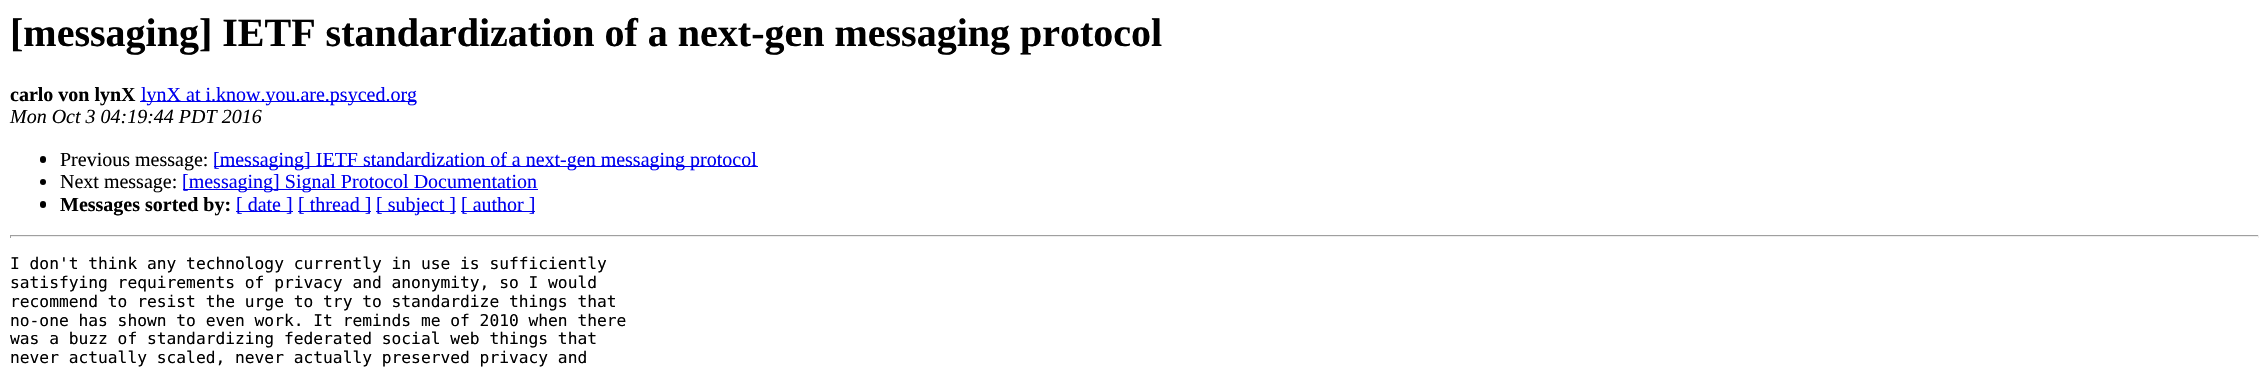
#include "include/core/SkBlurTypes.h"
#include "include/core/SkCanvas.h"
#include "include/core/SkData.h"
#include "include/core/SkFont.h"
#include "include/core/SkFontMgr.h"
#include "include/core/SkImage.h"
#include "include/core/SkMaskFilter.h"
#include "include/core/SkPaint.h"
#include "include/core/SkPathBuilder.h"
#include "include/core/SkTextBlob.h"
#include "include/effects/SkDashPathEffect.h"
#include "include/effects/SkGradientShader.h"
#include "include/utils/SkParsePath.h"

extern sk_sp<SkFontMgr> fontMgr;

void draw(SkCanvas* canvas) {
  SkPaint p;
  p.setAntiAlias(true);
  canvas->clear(SK_ColorWHITE);
  p.setColor(SkColorSetRGB(0, 0, 238));
  canvas->drawRect(SkRect::MakeLTRB(140, 101, 416, 102), p);
  p.setColor(SK_ColorBLACK);
  canvas->drawRoundRect(SkRect::MakeLTRB(40, 156, 46, 163), 3, 3, p);
  p.setColor(SkColorSetRGB(0, 0, 238));
  canvas->drawRect(SkRect::MakeLTRB(214, 166, 758, 167), p);
  p.setColor(SK_ColorBLACK);
  canvas->drawCircle(43, 182, 3, p);
  p.setColor(SkColorSetRGB(0, 0, 238));
  canvas->drawRect(SkRect::MakeLTRB(183, 189, 538, 190), p);
  p.setColor(SK_ColorBLACK);
  canvas->drawRoundRect(SkRect::MakeLTRB(40, 201, 46, 208), 3, 3, p);
  p.setColor(SkColorSetRGB(0, 0, 238));
  canvas->drawRect(SkRect::MakeLTRB(236, 211, 293, 212), p);
  canvas->drawRect(SkRect::MakeLTRB(298, 211, 371, 212), p);
  canvas->drawRect(SkRect::MakeLTRB(376, 211, 456, 212), p);
  canvas->drawRect(SkRect::MakeLTRB(461, 211, 535, 212), p);
  p.setColor(SkColorSetRGB(159, 159, 159));
  canvas->drawRect(SkRect::MakeLTRB(10, 235, 2259, 236), p);
  p.setColor(SkColorSetRGB(238, 238, 238));
  canvas->drawRect(SkRect::MakeLTRB(2258, 235, 2259, 238), p);
  canvas->drawRect(SkRect::MakeLTRB(10, 236, 2259, 237), p);
  p.setColor(SkColorSetRGB(159, 159, 159));
  canvas->drawRect(SkRect::MakeLTRB(10, 235, 11, 238), p);
  SkFont font1(fontMgr->matchFamilyStyle("Liberation Serif", SkFontStyle::Bold()), 40);
  font1.setSubpixel(true);
  p.setColor(SK_ColorBLACK);
  canvas->drawString("[messaging] IETF standardization of a next-gen messaging protocol", 10, 46, font1, p);
  SkFont font2(fontMgr->matchFamilyStyle("Liberation Serif", SkFontStyle::Bold()), 20);
  font2.setSubpixel(true);
  canvas->drawString("carlo von lynX", 10, 101, font2, p);
  SkFont font3(fontMgr->matchFamilyStyle("Liberation Serif", SkFontStyle::Normal()), 20);
  font3.setSubpixel(true);
  p.setColor(SkColorSetRGB(0, 0, 238));
  canvas->drawString("lynX at i.know.you.are.psyced.org", 141, 101, font3, p);
  SkFont font4(fontMgr->matchFamilyStyle("Liberation Serif", SkFontStyle::Italic()), 20);
  font4.setSubpixel(true);
  p.setColor(SK_ColorBLACK);
  canvas->drawString("Mon Oct 3 04:19:44 PDT 2016", 10, 123, font4, p);
  canvas->drawString("Previous message:", 60, 166, font3, p);
  p.setColor(SkColorSetRGB(0, 0, 238));
  canvas->drawString("[messaging] IETF standardization of a next-gen messaging protocol", 213, 166, font3, p);
  p.setColor(SK_ColorBLACK);
  canvas->drawString("Next message:", 60, 188, font3, p);
  p.setColor(SkColorSetRGB(0, 0, 238));
  canvas->drawString("[messaging] Signal Protocol Documentation", 182, 188, font3, p);
  p.setColor(SK_ColorBLACK);
  canvas->drawString("Messages sorted by:", 60, 211, font2, p);
  p.setColor(SkColorSetRGB(0, 0, 238));
  canvas->drawString("[ date ]", 236, 211, font3, p);
  canvas->drawString("[ thread ]", 298, 211, font3, p);
  canvas->drawString("[ subject ]", 376, 211, font3, p);
  canvas->drawString("[ author ]", 461, 211, font3, p);
  SkFont font5(fontMgr->matchFamilyStyle("DejaVu Sans Mono", SkFontStyle::Normal()), 16.25f);
  font5.setSubpixel(true);
  p.setColor(SK_ColorBLACK);
  canvas->drawString("I don't think any technology currently in use is sufficiently", 10, 269, font5, p);
  canvas->drawString("satisfying requirements of privacy and anonymity, so I would", 10, 288, font5, p);
  canvas->drawString("recommend to resist the urge to try to standardize things that", 10, 307, font5, p);
  canvas->drawString("no-one has shown to even work. It reminds me of 2010 when there", 10, 326, font5, p);
  canvas->drawString("was a buzz of standardizing federated social web things that", 10, 344, font5, p);
  canvas->drawString("never actually scaled, never actually preserved privacy and", 10, 363, font5, p);
}
